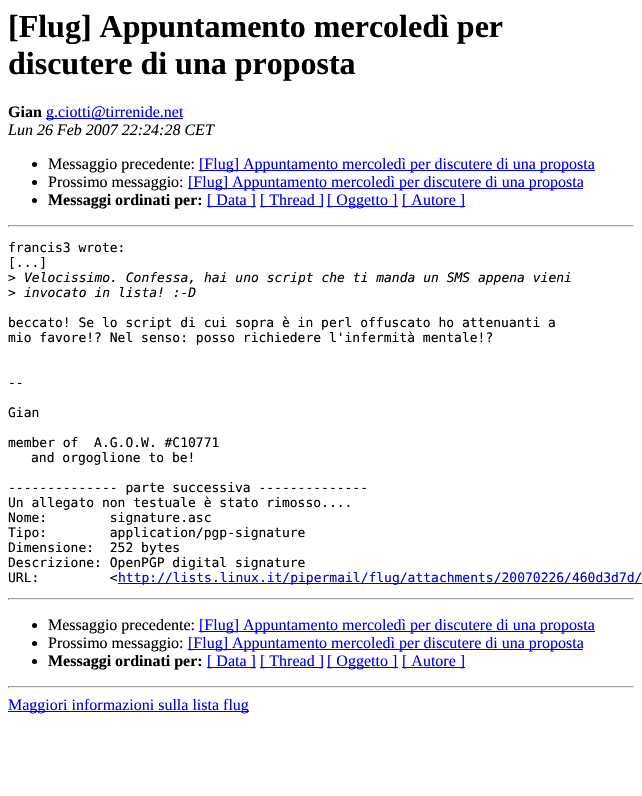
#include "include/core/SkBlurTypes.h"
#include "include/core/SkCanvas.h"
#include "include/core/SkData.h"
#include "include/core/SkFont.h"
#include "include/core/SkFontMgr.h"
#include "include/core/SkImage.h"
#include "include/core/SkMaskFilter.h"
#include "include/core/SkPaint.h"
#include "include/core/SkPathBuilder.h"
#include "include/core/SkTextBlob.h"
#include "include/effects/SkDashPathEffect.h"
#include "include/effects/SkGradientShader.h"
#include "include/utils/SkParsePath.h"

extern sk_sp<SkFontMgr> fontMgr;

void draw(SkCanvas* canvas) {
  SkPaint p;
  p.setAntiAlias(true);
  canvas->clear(SK_ColorWHITE);
  p.setColor(SkColorSetRGB(0, 0, 238));
  canvas->drawRect(SkRect::MakeLTRB(46, 118, 183, 119), p);
  p.setColor(SK_ColorBLACK);
  canvas->drawCircle(34.5f, 164.5f, 2.5f, p);
  p.setColor(SkColorSetRGB(0, 0, 238));
  canvas->drawRect(SkRect::MakeLTRB(199, 170, 595, 171), p);
  p.setColor(SK_ColorBLACK);
  canvas->drawCircle(34.5f, 182.5f, 2.5f, p);
  p.setColor(SkColorSetRGB(0, 0, 238));
  canvas->drawRect(SkRect::MakeLTRB(188, 188, 583, 189), p);
  p.setColor(SK_ColorBLACK);
  canvas->drawCircle(34.5f, 200.5f, 2.5f, p);
  p.setColor(SkColorSetRGB(0, 0, 238));
  canvas->drawRect(SkRect::MakeLTRB(207, 206, 256, 207), p);
  canvas->drawRect(SkRect::MakeLTRB(260, 206, 323, 207), p);
  canvas->drawRect(SkRect::MakeLTRB(327, 206, 398, 207), p);
  canvas->drawRect(SkRect::MakeLTRB(402, 206, 465, 207), p);
  p.setColor(SkColorSetRGB(159, 159, 159));
  canvas->drawRect(SkRect::MakeLTRB(8, 225, 634, 226), p);
  p.setColor(SkColorSetRGB(238, 238, 238));
  canvas->drawRect(SkRect::MakeLTRB(633, 225, 634, 227), p);
  canvas->drawRect(SkRect::MakeLTRB(8, 226, 634, 227), p);
  p.setColor(SkColorSetRGB(159, 159, 159));
  canvas->drawRect(SkRect::MakeLTRB(8, 225, 9, 227), p);
  p.setColor(SkColorSetRGB(0, 0, 238));
  canvas->drawRect(SkRect::MakeLTRB(118, 583, 642, 584), p);
  p.setColor(SkColorSetRGB(159, 159, 159));
  canvas->drawRect(SkRect::MakeLTRB(8, 598, 634, 599), p);
  p.setColor(SkColorSetRGB(238, 238, 238));
  canvas->drawRect(SkRect::MakeLTRB(633, 598, 634, 600), p);
  canvas->drawRect(SkRect::MakeLTRB(8, 599, 634, 600), p);
  p.setColor(SkColorSetRGB(159, 159, 159));
  canvas->drawRect(SkRect::MakeLTRB(8, 598, 9, 600), p);
  p.setColor(SK_ColorBLACK);
  canvas->drawCircle(34.5f, 625.5f, 2.5f, p);
  p.setColor(SkColorSetRGB(0, 0, 238));
  canvas->drawRect(SkRect::MakeLTRB(199, 631, 595, 632), p);
  p.setColor(SK_ColorBLACK);
  canvas->drawCircle(34.5f, 643.5f, 2.5f, p);
  p.setColor(SkColorSetRGB(0, 0, 238));
  canvas->drawRect(SkRect::MakeLTRB(188, 649, 583, 650), p);
  p.setColor(SK_ColorBLACK);
  canvas->drawCircle(34.5f, 661.5f, 2.5f, p);
  p.setColor(SkColorSetRGB(0, 0, 238));
  canvas->drawRect(SkRect::MakeLTRB(207, 667, 256, 668), p);
  canvas->drawRect(SkRect::MakeLTRB(260, 667, 323, 668), p);
  canvas->drawRect(SkRect::MakeLTRB(327, 667, 398, 668), p);
  canvas->drawRect(SkRect::MakeLTRB(402, 667, 465, 668), p);
  p.setColor(SkColorSetRGB(159, 159, 159));
  canvas->drawRect(SkRect::MakeLTRB(8, 686, 634, 687), p);
  p.setColor(SkColorSetRGB(238, 238, 238));
  canvas->drawRect(SkRect::MakeLTRB(633, 686, 634, 688), p);
  canvas->drawRect(SkRect::MakeLTRB(8, 687, 634, 688), p);
  p.setColor(SkColorSetRGB(159, 159, 159));
  canvas->drawRect(SkRect::MakeLTRB(8, 686, 9, 688), p);
  p.setColor(SkColorSetRGB(0, 0, 238));
  canvas->drawRect(SkRect::MakeLTRB(8, 711, 249, 712), p);
  SkFont font1(fontMgr->matchFamilyStyle("Liberation Serif", SkFontStyle::Bold()), 32);
  font1.setSubpixel(true);
  p.setColor(SK_ColorBLACK);
  canvas->drawString("[Flug] Appuntamento mercoledì per", 8, 37, font1, p);
  canvas->drawString("discutere di una proposta", 8, 74, font1, p);
  SkFont font2(fontMgr->matchFamilyStyle("Liberation Serif", SkFontStyle::Bold()), 16);
  font2.setSubpixel(true);
  canvas->drawString("Gian", 8, 117, font2, p);
  SkFont font3(fontMgr->matchFamilyStyle("Liberation Serif", SkFontStyle::Normal()), 16);
  font3.setSubpixel(true);
  p.setColor(SkColorSetRGB(0, 0, 238));
  canvas->drawString("g.ciotti@tirrenide.net", 46, 117, font3, p);
  SkFont font4(fontMgr->matchFamilyStyle("Liberation Serif", SkFontStyle::Italic()), 16);
  font4.setSubpixel(true);
  p.setColor(SK_ColorBLACK);
  canvas->drawString("Lun 26 Feb 2007 22:24:28 CET", 8, 135, font4, p);
  canvas->drawString("Messaggio precedente:", 48, 169, font3, p);
  p.setColor(SkColorSetRGB(0, 0, 238));
  canvas->drawString("[Flug] Appuntamento mercoledì per discutere di una proposta", 199, 169, font3, p);
  p.setColor(SK_ColorBLACK);
  canvas->drawString("Prossimo messaggio:", 48, 187, font3, p);
  p.setColor(SkColorSetRGB(0, 0, 238));
  canvas->drawString("[Flug] Appuntamento mercoledì per discutere di una proposta", 188, 187, font3, p);
  p.setColor(SK_ColorBLACK);
  canvas->drawString("Messaggi ordinati per:", 48, 205, font2, p);
  p.setColor(SkColorSetRGB(0, 0, 238));
  canvas->drawString("[ Data ]", 207, 205, font3, p);
  canvas->drawString("[ Thread ]", 260, 205, font3, p);
  canvas->drawString("[ Oggetto ]", 327, 205, font3, p);
  canvas->drawString("[ Autore ]", 402, 205, font3, p);
  SkFont font5(fontMgr->matchFamilyStyle("DejaVu Sans Mono", SkFontStyle::Normal()), 13);
  font5.setSubpixel(true);
  p.setColor(SK_ColorBLACK);
  canvas->drawString("francis3 wrote:", 8, 252, font5, p);
  canvas->drawString("[...]", 8, 267, font5, p);
  canvas->drawString(">", 8, 282, font5, p);
  SkFont font6(fontMgr->matchFamilyStyle("DejaVu Sans Mono", SkFontStyle::Italic()), 13);
  font6.setSubpixel(true);
  canvas->drawString("Velocissimo. Confessa, hai uno script che ti manda un SMS appena vieni", 24, 282, font6, p);
  canvas->drawString(">", 8, 297, font5, p);
  canvas->drawString("invocato in lista! :-D", 24, 297, font6, p);
  canvas->drawString("beccato! Se lo script di cui sopra è in perl offuscato ho attenuanti a", 8, 327, font5, p);
  canvas->drawString("mio favore!? Nel senso: posso richiedere l'infermità mentale!?", 8, 342, font5, p);
  canvas->drawString("--", 8, 387, font5, p);
  canvas->drawString("Gian", 8, 417, font5, p);
  canvas->drawString("member of  A.G.O.W. #C10771", 8, 447, font5, p);
  canvas->drawString("and orgoglione to be!", 31, 462, font5, p);
  canvas->drawString("-------------- parte successiva --------------", 8, 492, font5, p);
  canvas->drawString("Un allegato non testuale è stato rimosso....", 8, 507, font5, p);
  canvas->drawString("Nome:        signature.asc", 8, 522, font5, p);
  canvas->drawString("Tipo:        application/pgp-signature", 8, 537, font5, p);
  canvas->drawString("Dimensione:  252 bytes", 8, 552, font5, p);
  canvas->drawString("Descrizione: OpenPGP digital signature", 8, 567, font5, p);
  canvas->drawString("URL:         <", 8, 582, font5, p);
  p.setColor(SkColorSetRGB(0, 0, 238));
  canvas->drawString("http://lists.linux.it/pipermail/flug/attachments/20070226/460d3d7d/", 118, 582, font5, p);
  p.setColor(SK_ColorBLACK);
  canvas->drawString("Messaggio precedente:", 48, 630, font3, p);
  p.setColor(SkColorSetRGB(0, 0, 238));
  canvas->drawString("[Flug] Appuntamento mercoledì per discutere di una proposta", 199, 630, font3, p);
  p.setColor(SK_ColorBLACK);
  canvas->drawString("Prossimo messaggio:", 48, 648, font3, p);
  p.setColor(SkColorSetRGB(0, 0, 238));
  canvas->drawString("[Flug] Appuntamento mercoledì per discutere di una proposta", 188, 648, font3, p);
  p.setColor(SK_ColorBLACK);
  canvas->drawString("Messaggi ordinati per:", 48, 666, font2, p);
  p.setColor(SkColorSetRGB(0, 0, 238));
  canvas->drawString("[ Data ]", 207, 666, font3, p);
  canvas->drawString("[ Thread ]", 260, 666, font3, p);
  canvas->drawString("[ Oggetto ]", 327, 666, font3, p);
  canvas->drawString("[ Autore ]", 402, 666, font3, p);
  canvas->drawString("Maggiori informazioni sulla lista flug", 8, 710, font3, p);
}
